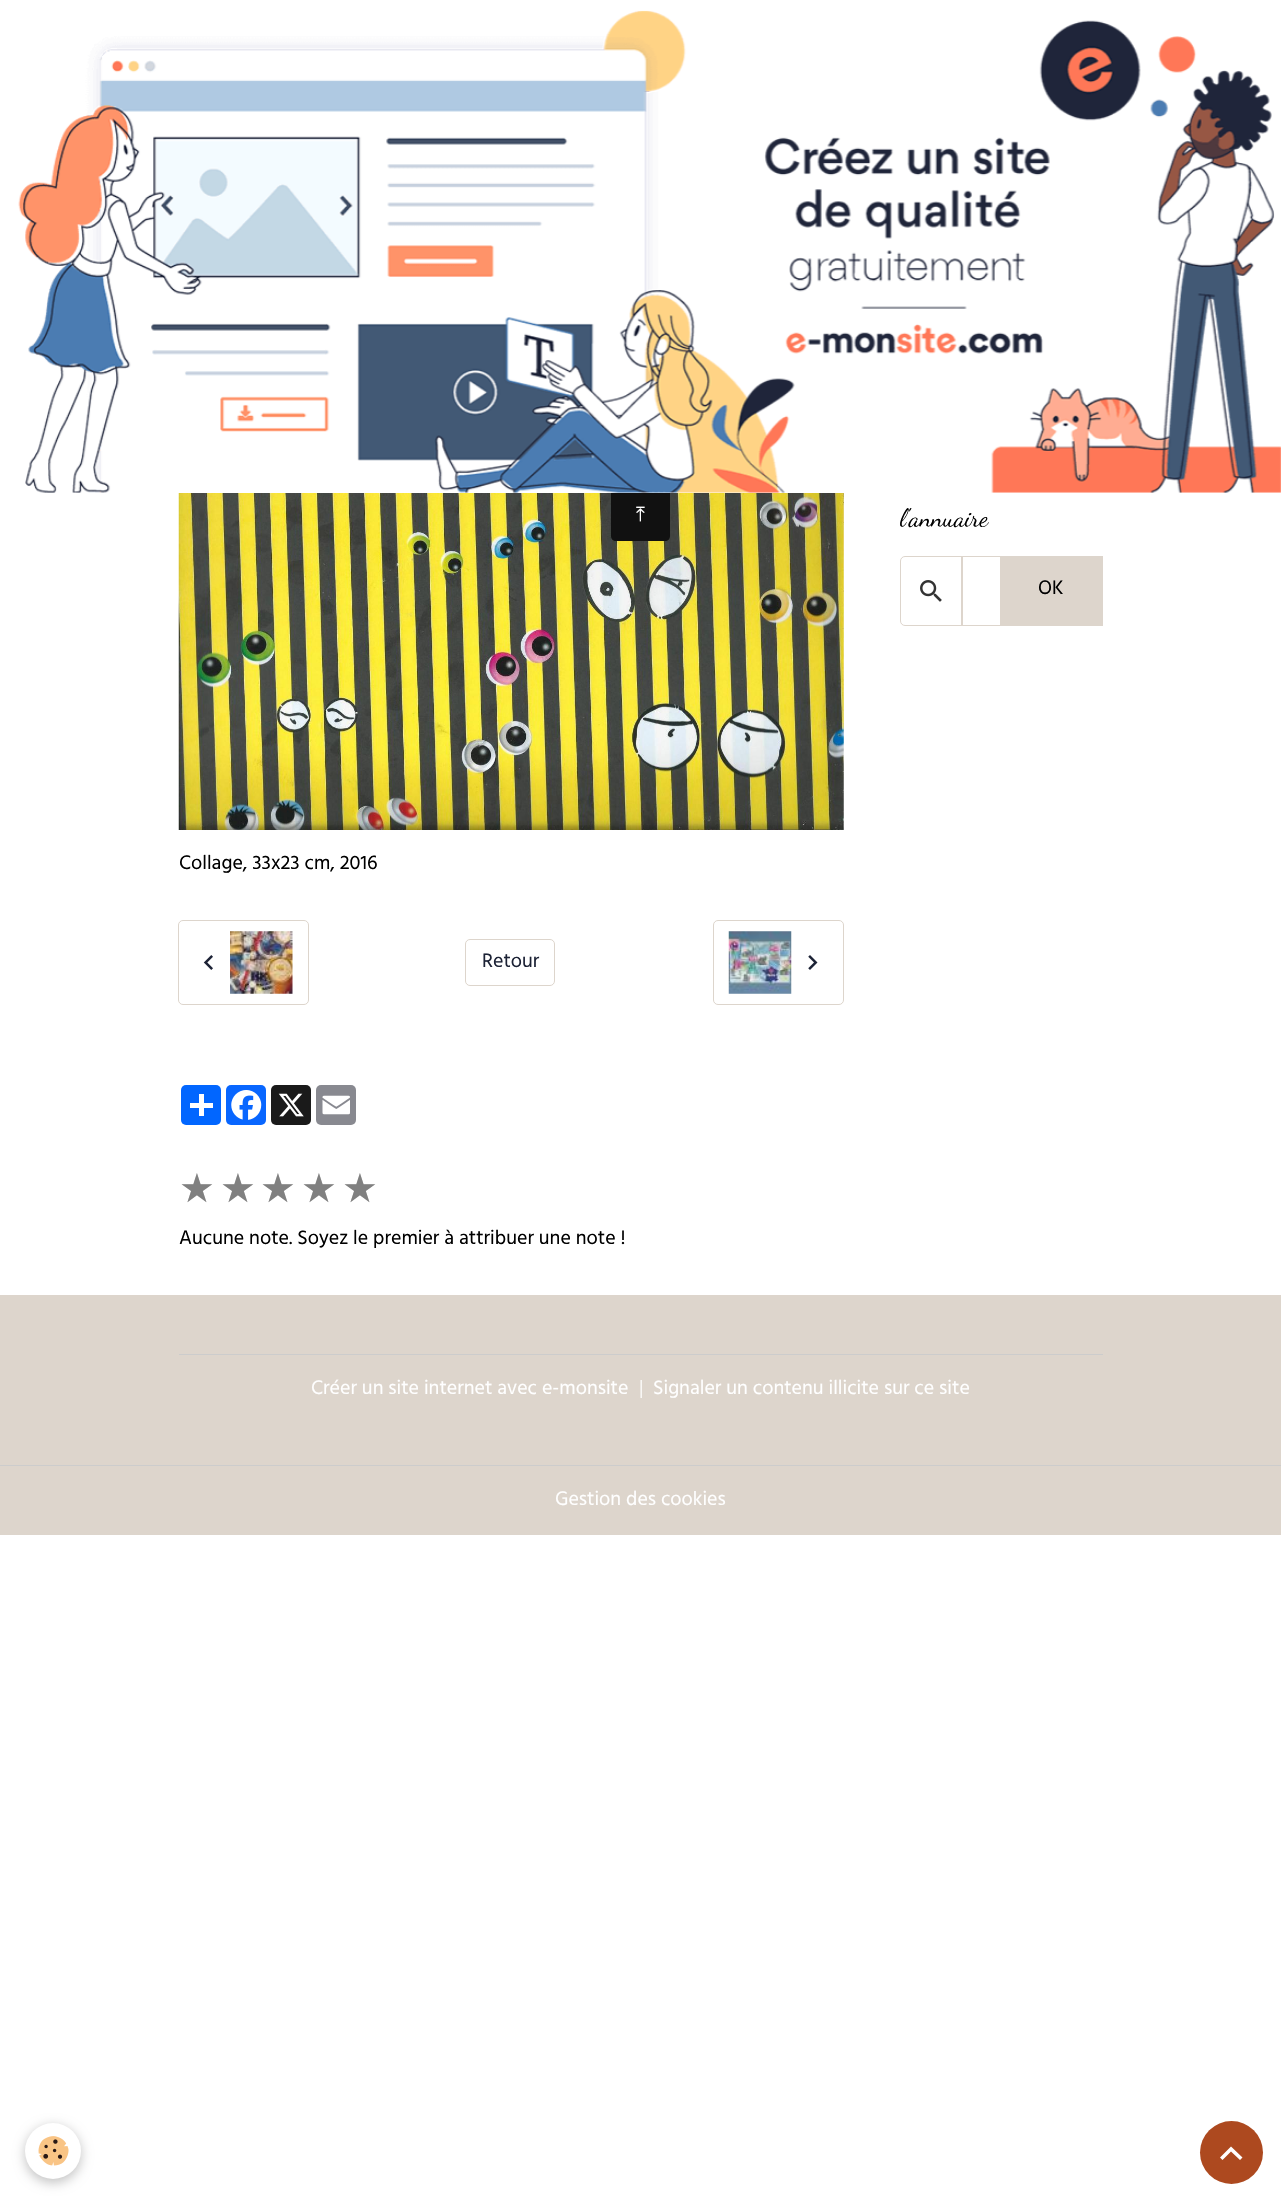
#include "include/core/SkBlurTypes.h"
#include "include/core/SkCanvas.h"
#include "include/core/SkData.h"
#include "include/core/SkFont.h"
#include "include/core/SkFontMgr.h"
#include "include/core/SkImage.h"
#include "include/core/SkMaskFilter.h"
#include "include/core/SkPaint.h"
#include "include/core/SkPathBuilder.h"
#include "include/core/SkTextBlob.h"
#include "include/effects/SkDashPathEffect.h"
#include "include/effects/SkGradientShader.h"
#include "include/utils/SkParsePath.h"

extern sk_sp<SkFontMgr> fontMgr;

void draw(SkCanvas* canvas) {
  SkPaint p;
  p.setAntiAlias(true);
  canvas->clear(SK_ColorWHITE);
  canvas->drawImageRect(SkImages::DeferredFromEncodedData(SkData::MakeFromFileName("images/1.png")), SkRect::MakeLTRB(18, 10, 1281, 493), SkSamplingOptions());
  canvas->drawImageRect(SkImages::DeferredFromEncodedData(SkData::MakeFromFileName("images/3.png")), SkRect::MakeLTRB(178, 493, 844, 830), SkSamplingOptions());
  p.setColor(SkColorSetRGB(17, 17, 17));
  canvas->drawPath(SkPathBuilder().moveTo(611, 493).lineTo(670, 493).lineTo(670, 536).cubicTo(670, 539, 668, 541, 665, 541).lineTo(616, 541).cubicTo(613, 541, 611, 539, 611, 536).close().detach(), p);
  p.setStyle(SkPaint::kStroke_Style);
  p.setStrokeWidth(1);
  p.setColor(SkColorSetRGB(221, 213, 204));
  canvas->drawPath(SkPathBuilder().moveTo(905, 556.5f).lineTo(962.5f, 556.5f).lineTo(962.5f, 625.5f).lineTo(905, 625.5f).cubicTo(902.5f, 625.5f, 900.5f, 623.5f, 900.5f, 621).lineTo(900.5f, 561).cubicTo(900.5f, 558.5f, 902.5f, 556.5f, 905, 556.5f).close().detach(), p);
  canvas->drawImageRect(SkImages::DeferredFromEncodedData(SkData::MakeFromFileName("images/2.png")), SkRect::MakeLTRB(920, 580, 942, 602), SkSamplingOptions());
  canvas->drawRect(SkRect::MakeLTRB(961.5f, 556.5f, 1000.5f, 625.5f), p);
  p.setStyle(SkPaint::kFill_Style);
  canvas->drawRect(SkRect::MakeLTRB(1001, 556, 1103, 626), p);
  p.setStyle(SkPaint::kStroke_Style);
  canvas->drawRoundRect(SkRect::MakeLTRB(178.5f, 920.5f, 308.5f, 1004.5f), 4.5f, 4.5f, p);
  canvas->drawImageRect(SkImages::DeferredFromEncodedData(SkData::MakeFromFileName("images/4.png")), SkRect::MakeLTRB(203, 955, 213, 970), SkSamplingOptions());
  canvas->drawImageRect(SkImages::DeferredFromEncodedData(SkData::MakeFromFileName("images/5.png")), SkRect::MakeLTRB(230, 931, 293, 994), SkSamplingOptions());
  canvas->drawRoundRect(SkRect::MakeLTRB(465.5f, 939.5f, 554.5f, 985.5f), 4.5f, 4.5f, p);
  canvas->drawRoundRect(SkRect::MakeLTRB(713.5f, 920.5f, 843.5f, 1004.5f), 4.5f, 4.5f, p);
  canvas->drawImageRect(SkImages::DeferredFromEncodedData(SkData::MakeFromFileName("images/6.png")), SkRect::MakeLTRB(728, 931, 792, 994), SkSamplingOptions());
  canvas->drawImageRect(SkImages::DeferredFromEncodedData(SkData::MakeFromFileName("images/7.png")), SkRect::MakeLTRB(808, 955, 818, 970), SkSamplingOptions());
  p.setStyle(SkPaint::kFill_Style);
  p.setColor(SkColorSetRGB(1, 102, 255));
  canvas->drawRoundRect(SkRect::MakeLTRB(181, 1085, 221, 1125), 5, 5, p);
  p.setColor(SK_ColorWHITE);
  canvas->drawRect(SkRect::MakeLTRB(199, 1094, 204, 1116), p);
  canvas->drawRect(SkRect::MakeLTRB(190, 1103, 213, 1108), p);
  p.setColor(SkColorSetRGB(8, 102, 255));
  canvas->drawRoundRect(SkRect::MakeLTRB(226, 1085, 266, 1125), 5, 5, p);
  canvas->drawImageRect(SkImages::DeferredFromEncodedData(SkData::MakeFromFileName("images/8.png")), SkRect::MakeLTRB(231, 1090, 262, 1120), SkSamplingOptions());
  p.setColor(SkColorSetRGB(26, 26, 26));
  canvas->drawRoundRect(SkRect::MakeLTRB(271, 1085, 311, 1125), 5, 5, p);
  canvas->drawImageRect(SkImages::DeferredFromEncodedData(SkData::MakeFromFileName("images/9.png")), SkRect::MakeLTRB(278, 1093, 304, 1117), SkSamplingOptions());
  p.setColor(SkColorSetRGB(136, 137, 144));
  canvas->drawRoundRect(SkRect::MakeLTRB(316, 1085, 356, 1125), 5, 5, p);
  canvas->drawImageRect(SkImages::DeferredFromEncodedData(SkData::MakeFromFileName("images/10.png")), SkRect::MakeLTRB(322, 1095, 350, 1115), SkSamplingOptions());
  p.setColor(SkColorSetRGB(221, 213, 204));
  canvas->drawRect(SkRect::MakeLTRB(0, 1295, 1281, 1535), p);
  p.setColor(SkColorSetRGB(204, 204, 204));
  canvas->drawRect(SkRect::MakeLTRB(179, 1354, 1103, 1355), p);
  canvas->drawRect(SkRect::MakeLTRB(0, 1465, 1281, 1466), p);
  p.setColor(SkColorSetARGB(61, 0, 0, 0));
  p.setMaskFilter(SkMaskFilter::MakeBlur(kNormal_SkBlurStyle, 6));
  canvas->drawRoundRect(SkRect::MakeLTRB(25, 2126, 81, 2183), 28, 28, p);
  p.setMaskFilter(nullptr);
  p.setColor(SK_ColorWHITE);
  canvas->drawCircle(53, 2151, 28, p);
  canvas->drawImageRect(SkImages::DeferredFromEncodedData(SkData::MakeFromFileName("images/11.png")), SkRect::MakeLTRB(38, 2136, 69, 2166), SkSamplingOptions());
  p.setColor(SkColorSetRGB(173, 73, 31));
  canvas->drawCircle(1231.5f, 2152.5f, 31.5f, p);
  p.setColor(SK_ColorWHITE);
  canvas->drawPath(SkPathBuilder().moveTo(1231, 2146.5f).lineTo(1242.5f, 2157.5f).lineTo(1240, 2160).lineTo(1231, 2151.5f).lineTo(1222.5f, 2160).lineTo(1220, 2157.5f).close().detach(), p);
  SkFont font1(fontMgr->matchFamilyStyle("FreeSerif", SkFontStyle::Normal()), 20);
  font1.setSubpixel(true);
  canvas->drawString("⤒", 636, 521, font1, p);
  canvas->save();
  canvas->clipRect(SkRect::MakeLTRB(900, 463, 1103, 626));
  SkFont font2(fontMgr->matchFamilyStyle("Dancing Script", SkFontStyle::Normal()), 25);
  font2.setSubpixel(true);
  p.setColor(SK_ColorBLACK);
  canvas->drawString("l'annuaire", 900, 526, font2, p);
  canvas->restore();
  SkFont font3(fontMgr->matchFamilyStyle("Hind Guntur", SkFontStyle::Normal()), 20);
  font3.setSubpixel(true);
  canvas->drawString("OK", 1038, 594, font3, p);
  canvas->drawString("Collage, 33x23 cm, 2016", 179, 869, font3, p);
  p.setColor(SkColorSetRGB(28, 34, 53));
  canvas->drawString("Retour", 482, 967, font3, p);
  SkFont font4(fontMgr->matchFamilyStyle("DejaVu Sans", SkFontStyle::Normal()), 40);
  font4.setSubpixel(true);
  p.setColor(SkColorSetRGB(128, 128, 128));
  canvas->drawString("★", 179, 1202, font4, p);
  canvas->drawString("★", 220, 1202, font4, p);
  canvas->drawString("★", 260, 1202, font4, p);
  canvas->drawString("★", 301, 1202, font4, p);
  canvas->drawString("★", 342, 1202, font4, p);
  p.setColor(SK_ColorBLACK);
  canvas->drawString("Aucune note. Soyez le premier à attribuer une note !", 179, 1244, font3, p);
  p.setColor(SK_ColorWHITE);
  canvas->drawString("Créer un site internet avec e-monsite", 311, 1394, font3, p);
  p.setColor(SkColorSetRGB(248, 247, 245));
  canvas->drawString("|", 639, 1394, font3, p);
  p.setColor(SK_ColorWHITE);
  canvas->drawString("Signaler un contenu illicite sur ce site", 653, 1394, font3, p);
  canvas->drawString("Gestion des cookies", 555, 1505, font3, p);
}
